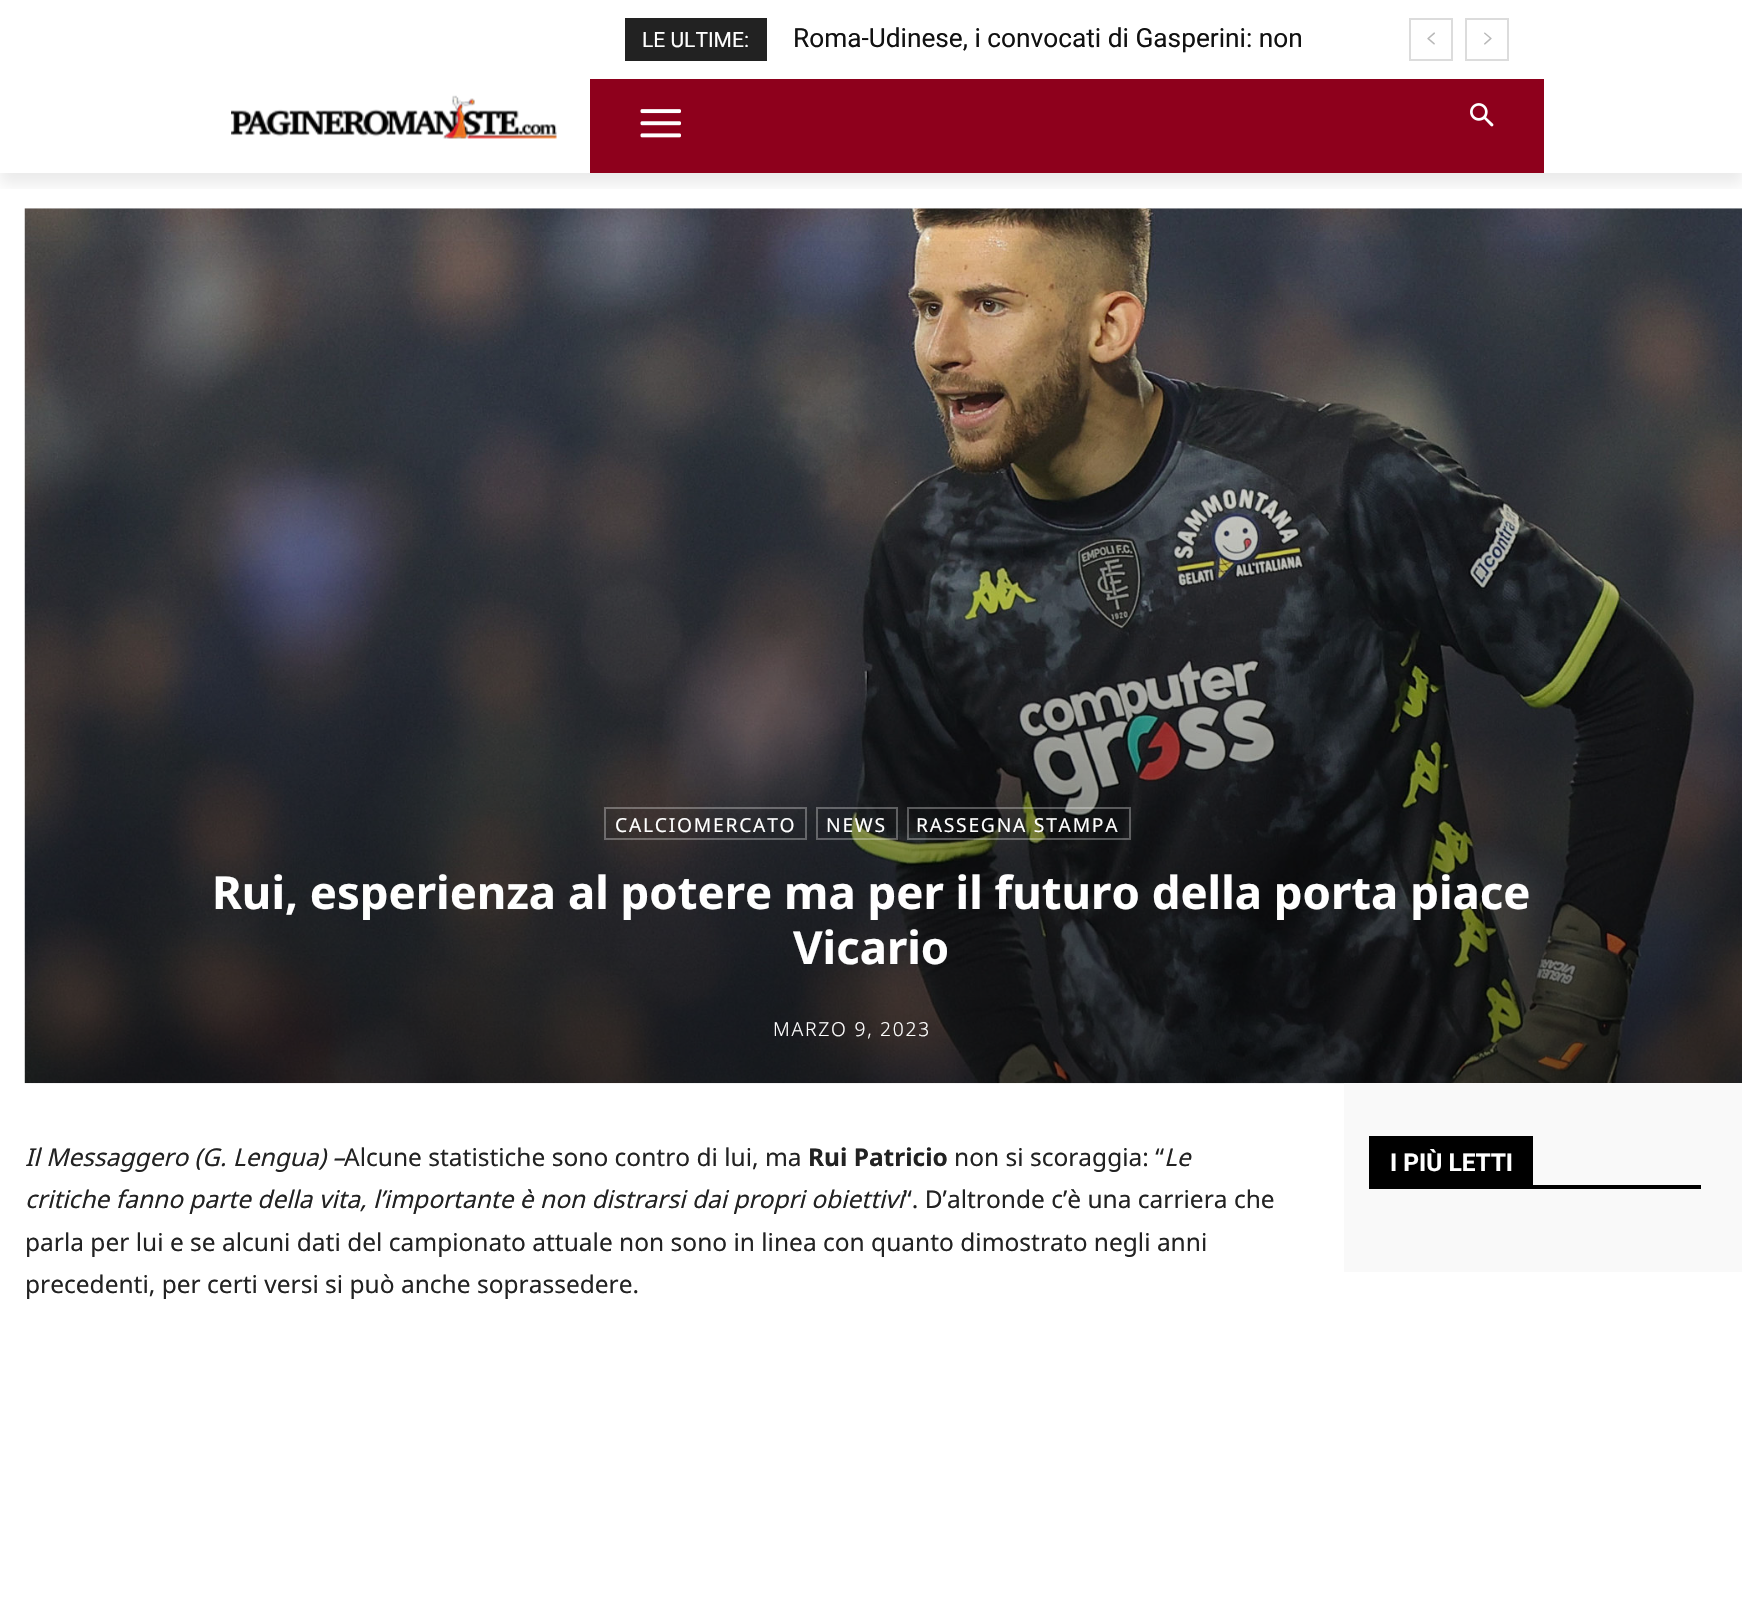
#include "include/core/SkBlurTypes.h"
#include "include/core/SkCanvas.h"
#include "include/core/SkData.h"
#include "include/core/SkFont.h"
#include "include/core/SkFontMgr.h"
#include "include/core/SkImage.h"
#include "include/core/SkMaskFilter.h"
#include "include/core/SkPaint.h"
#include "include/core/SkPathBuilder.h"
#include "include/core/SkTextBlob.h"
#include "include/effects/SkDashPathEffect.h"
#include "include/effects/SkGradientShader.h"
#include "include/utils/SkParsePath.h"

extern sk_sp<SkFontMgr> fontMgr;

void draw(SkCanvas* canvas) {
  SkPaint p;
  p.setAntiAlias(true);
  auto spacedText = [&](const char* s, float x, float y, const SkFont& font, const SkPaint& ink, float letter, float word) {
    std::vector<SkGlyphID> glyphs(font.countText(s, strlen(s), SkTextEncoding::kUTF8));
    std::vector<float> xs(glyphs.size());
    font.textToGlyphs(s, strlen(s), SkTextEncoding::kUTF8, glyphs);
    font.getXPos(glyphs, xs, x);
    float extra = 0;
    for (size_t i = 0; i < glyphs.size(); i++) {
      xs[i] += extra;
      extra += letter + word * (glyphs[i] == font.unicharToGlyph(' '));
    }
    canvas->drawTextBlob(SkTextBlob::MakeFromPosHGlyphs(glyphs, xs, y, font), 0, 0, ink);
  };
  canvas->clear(SK_ColorWHITE);
  p.setColor(SkColorSetRGB(34, 34, 34));
  canvas->drawRect(SkRect::MakeLTRB(625, 18, 767, 61), p);
  p.setStyle(SkPaint::kStroke_Style);
  p.setStrokeWidth(2);
  p.setColor(SkColorSetRGB(220, 220, 220));
  canvas->drawRect(SkRect::MakeLTRB(1410, 19, 1452, 60), p);
  canvas->drawImageRect(SkImages::DeferredFromEncodedData(SkData::MakeFromFileName("images/1.png")), SkRect::MakeLTRB(1427, 32, 1435, 45), SkSamplingOptions());
  canvas->drawRect(SkRect::MakeLTRB(1466, 19, 1508, 60), p);
  canvas->drawImageRect(SkImages::DeferredFromEncodedData(SkData::MakeFromFileName("images/2.png")), SkRect::MakeLTRB(1484, 32, 1492, 45), SkSamplingOptions());
  p.setStyle(SkPaint::kFill_Style);
  p.setColor(SkColorSetRGB(142, 0, 28));
  canvas->drawRect(SkRect::MakeLTRB(590, 79, 1544, 173), p);
  canvas->drawImageRect(SkImages::DeferredFromEncodedData(SkData::MakeFromFileName("images/3.png")), SkRect::MakeLTRB(640, 109, 681, 138), SkSamplingOptions());
  canvas->drawImageRect(SkImages::DeferredFromEncodedData(SkData::MakeFromFileName("images/5.png")), SkRect::MakeLTRB(231, 95, 557, 139), SkSamplingOptions());
  canvas->save();
  canvas->clipRect(SkRect::MakeLTRB(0, 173, 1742, 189));
  p.setColor(SkColorSetARGB(20, 0, 0, 0));
  p.setMaskFilter(SkMaskFilter::MakeBlur(kNormal_SkBlurStyle, 7));
  canvas->drawRect(SkRect::MakeLTRB(0, 11, 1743, 184), p);
  p.setMaskFilter(nullptr);
  canvas->restore();
  canvas->drawImageRect(SkImages::DeferredFromEncodedData(SkData::MakeFromFileName("images/4.png")), SkRect::MakeLTRB(1470, 103, 1494, 127), SkSamplingOptions());
  canvas->drawImageRect(SkImages::DeferredFromEncodedData(SkData::MakeFromFileName("images/6.png")), SkRect::MakeLTRB(24, 208, 1742, 1084), SkSamplingOptions());
  {
    const SkColor colors[] = {SkColorSetARGB(148, 0, 0, 0), SkColorSetARGB(0, 0, 0, 0)};
    const float stops[] = {0, 1};
    const SkPoint ends[] = {{1096, 1083}, {1096, 208}};
    p.setShader(SkGradientShader::MakeLinear(ends, colors, stops, 2, SkTileMode::kClamp));
    p.setAlpha(255);
  }
  canvas->drawRect(SkRect::MakeLTRB(25, 241, 1742, 1083), p);
  p.setStyle(SkPaint::kStroke_Style);
  p.setShader(nullptr);
  p.setColor(SkColorSetARGB(77, 255, 255, 255));
  canvas->drawRect(SkRect::MakeLTRB(605, 808, 806, 839), p);
  canvas->drawRect(SkRect::MakeLTRB(817, 808, 897, 839), p);
  canvas->drawRect(SkRect::MakeLTRB(908, 808, 1130, 839), p);
  p.setStyle(SkPaint::kFill_Style);
  p.setColor(SkColorSetRGB(249, 249, 249));
  canvas->drawRect(SkRect::MakeLTRB(1344, 1083, 1742, 1272), p);
  p.setColor(SK_ColorBLACK);
  canvas->drawRect(SkRect::MakeLTRB(1369, 1185, 1701, 1189), p);
  canvas->drawRect(SkRect::MakeLTRB(1369, 1136, 1533, 1185), p);
  SkFont font1(fontMgr->matchFamilyStyle("Roboto", SkFontStyle::Normal()), 21);
  font1.setSubpixel(true);
  p.setColor(SK_ColorWHITE);
  canvas->drawString("LE ULTIME:", 642, 47, font1, p);
  SkFont font2(fontMgr->matchFamilyStyle("Roboto", SkFontStyle::Normal()), 26.25f);
  font2.setSubpixel(true);
  p.setColor(SkColorSetRGB(17, 17, 17));
  canvas->drawString("Roma-Udinese, i convocati di Gasperini: non", 793, 47, font2, p);
  SkFont font3(fontMgr->matchFamilyStyle("Noto Sans", SkFontStyle::Normal()), 19.25f);
  font3.setSubpixel(true);
  p.setColor(SK_ColorWHITE);
  spacedText("CALCIOMERCATO", 615, 832, font3, p, 1.75f, 0);
  spacedText("NEWS", 826, 832, font3, p, 1.75f, 0);
  spacedText("RASSEGNA STAMPA", 916, 832, font3, p, 1.75f, 0);
  SkFont font4(fontMgr->matchFamilyStyle("Noto Sans", SkFontStyle::Bold()), 45.5f);
  font4.setSubpixel(true);
  canvas->drawString("Rui, esperienza al potere ma per il futuro della porta piace", 212, 909, font4, p);
  canvas->drawString("Vicario", 793, 964, font4, p);
  SkFont font5(fontMgr->matchFamilyStyle("Noto Sans", SkFontStyle(300, SkFontStyle::kNormal_Width, SkFontStyle::kUpright_Slant)), 19.25f);
  font5.setSubpixel(true);
  spacedText("MARZO 9, 2023", 773, 1036, font5, p, 1.75f, 0);
  SkFont font6(fontMgr->matchFamilyStyle("Noto Sans", SkFontStyle::Italic()), 24.5f);
  font6.setSubpixel(true);
  p.setColor(SkColorSetRGB(34, 34, 34));
  canvas->drawString("Il Messaggero (G. Lengua) –", 25, 1166, font6, p);
  SkFont font7(fontMgr->matchFamilyStyle("Noto Sans", SkFontStyle::Normal()), 24.5f);
  font7.setSubpixel(true);
  canvas->drawString("Alcune statistiche sono contro di lui, ma", 344, 1166, font7, p);
  SkFont font8(fontMgr->matchFamilyStyle("Noto Sans", SkFontStyle::Bold()), 24.5f);
  font8.setSubpixel(true);
  canvas->drawString("Rui Patricio", 808, 1166, font8, p);
  canvas->drawString("non si scoraggia: “", 954, 1166, font7, p);
  canvas->drawString("Le", 1164, 1166, font6, p);
  canvas->drawString("critiche fanno parte della vita, l’importante è non distrarsi dai propri obiettivi", 25, 1208, font6, p);
  canvas->drawString("“. D’altronde c’è una carriera che", 903, 1208, font7, p);
  canvas->drawString("parla per lui e se alcuni dati del campionato attuale non sono in linea con quanto dimostrato negli anni", 25, 1251, font7, p);
  canvas->drawString("precedenti, per certi versi si può anche soprassedere.", 25, 1293, font7, p);
  SkFont font9(fontMgr->matchFamilyStyle("Roboto", SkFontStyle::Bold()), 24.5f);
  font9.setSubpixel(true);
  p.setColor(SK_ColorWHITE);
  canvas->drawString("I PIÙ LETTI", 1390, 1171, font9, p);
}
